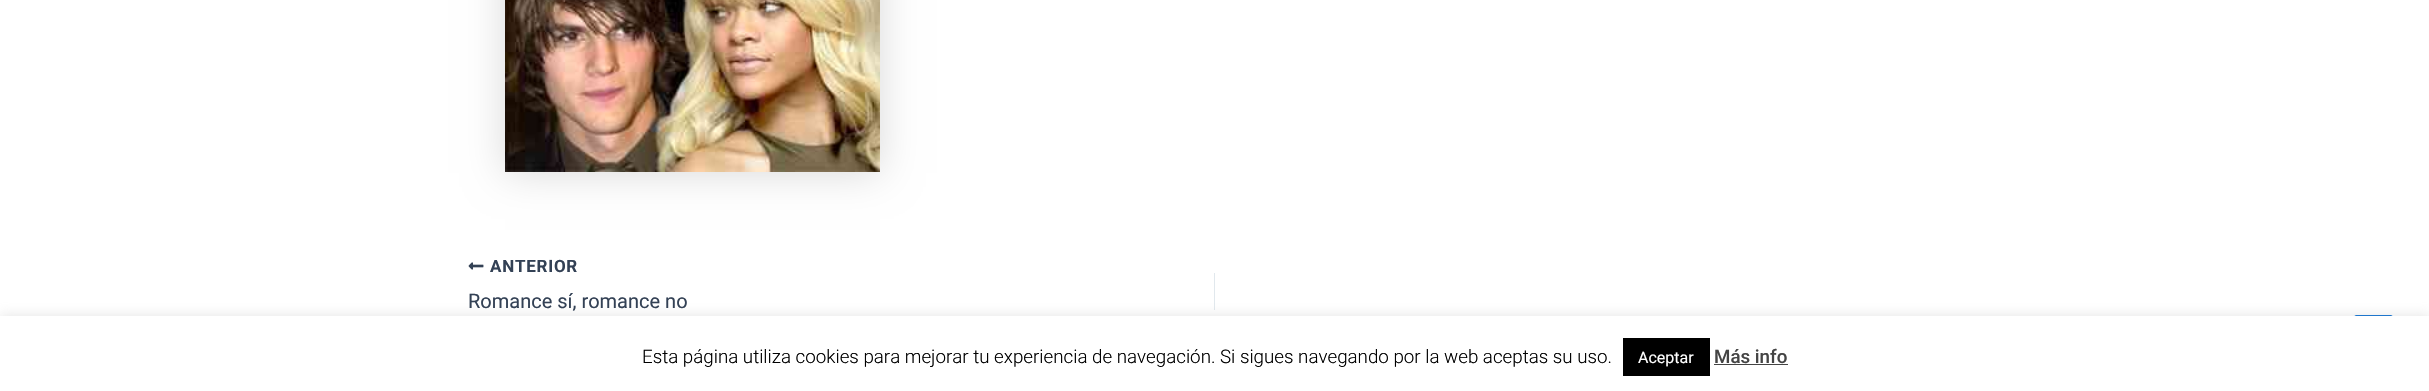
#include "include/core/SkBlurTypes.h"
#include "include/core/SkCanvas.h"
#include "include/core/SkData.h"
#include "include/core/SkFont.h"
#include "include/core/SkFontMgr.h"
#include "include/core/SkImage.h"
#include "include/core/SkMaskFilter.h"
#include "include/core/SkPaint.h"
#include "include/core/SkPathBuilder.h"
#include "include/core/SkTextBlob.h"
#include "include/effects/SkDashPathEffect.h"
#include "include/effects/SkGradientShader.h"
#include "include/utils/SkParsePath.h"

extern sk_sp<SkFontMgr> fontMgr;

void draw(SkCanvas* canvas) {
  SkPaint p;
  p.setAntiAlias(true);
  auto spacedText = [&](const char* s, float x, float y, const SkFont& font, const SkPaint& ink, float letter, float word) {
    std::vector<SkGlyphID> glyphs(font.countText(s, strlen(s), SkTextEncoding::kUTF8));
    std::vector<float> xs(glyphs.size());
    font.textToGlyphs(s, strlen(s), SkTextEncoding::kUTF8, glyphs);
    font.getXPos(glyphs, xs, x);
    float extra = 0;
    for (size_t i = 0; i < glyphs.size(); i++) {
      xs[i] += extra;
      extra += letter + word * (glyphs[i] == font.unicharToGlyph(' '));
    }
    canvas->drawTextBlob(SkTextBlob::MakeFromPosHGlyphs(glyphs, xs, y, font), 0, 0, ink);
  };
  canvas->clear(SK_ColorWHITE);
  p.setColor(SkColorSetARGB(38, 0, 0, 0));
  p.setMaskFilter(SkMaskFilter::MakeBlur(kNormal_SkBlurStyle, 19));
  canvas->drawRect(SkRect::MakeLTRB(505, -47, 880, 173), p);
  p.setMaskFilter(nullptr);
  canvas->drawImageRect(SkImages::DeferredFromEncodedData(SkData::MakeFromFileName("images/1.png")), SkRect::MakeLTRB(505, 0, 880, 172), SkSamplingOptions());
  canvas->drawImageRect(SkImages::DeferredFromEncodedData(SkData::MakeFromFileName("images/2.png")), SkRect::MakeLTRB(468, 262, 484, 270), SkSamplingOptions());
  p.setColor(SkColorSetRGB(225, 232, 237));
  canvas->drawRect(SkRect::MakeLTRB(1214, 273, 1215, 310), p);
  p.setColor(SkColorSetRGB(4, 107, 210));
  canvas->drawRoundRect(SkRect::MakeLTRB(2354, 315, 2393, 354), 2.5f, 2.5f, p);
  p.setColor(SkColorSetARGB(77, 172, 171, 171));
  p.setMaskFilter(SkMaskFilter::MakeBlur(kNormal_SkBlurStyle, 6));
  canvas->drawRect(SkRect::MakeLTRB(0, 315, 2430, 390), p);
  p.setMaskFilter(nullptr);
  p.setColor(SK_ColorWHITE);
  canvas->drawRect(SkRect::MakeLTRB(0, 316, 2429, 391), p);
  p.setColor(SK_ColorBLACK);
  canvas->drawRect(SkRect::MakeLTRB(1623, 338, 1710, 376), p);
  p.setColor(SkColorSetRGB(68, 68, 68));
  canvas->drawRect(SkRect::MakeLTRB(1714, 364, 1788, 365), p);
  SkFont font1(fontMgr->matchFamilyStyle("Roboto", SkFontStyle::Bold()), 17);
  font1.setSubpixel(true);
  p.setColor(SkColorSetRGB(51, 65, 85));
  spacedText("ANTERIOR", 490, 272, font1, p, 0.75f, 0);
  SkFont font2(fontMgr->matchFamilyStyle("Roboto", SkFontStyle::Normal()), 20);
  font2.setSubpixel(true);
  canvas->drawString("Romance sí, romance no", 468, 308, font2, p);
  SkFont font3(fontMgr->matchFamilyStyle("Roboto", SkFontStyle(300, SkFontStyle::kNormal_Width, SkFontStyle::kUpright_Slant)), 18.75f);
  font3.setSubpixel(true);
  p.setColor(SK_ColorBLACK);
  canvas->drawString("Esta página utiliza cookies para mejorar tu experiencia de navegación. Si sigues navegando por la web aceptas su uso.", 642, 363, font3, p);
  SkFont font4(fontMgr->matchFamilyStyle("Roboto", SkFontStyle::Normal()), 16);
  font4.setSubpixel(true);
  p.setColor(SK_ColorWHITE);
  canvas->drawString("Aceptar", 1638, 363, font4, p);
  SkFont font5(fontMgr->matchFamilyStyle("Roboto", SkFontStyle(500, SkFontStyle::kNormal_Width, SkFontStyle::kUpright_Slant)), 18.75f);
  font5.setSubpixel(true);
  p.setColor(SkColorSetRGB(68, 68, 68));
  canvas->drawString("Más info", 1714, 363, font5, p);
}
